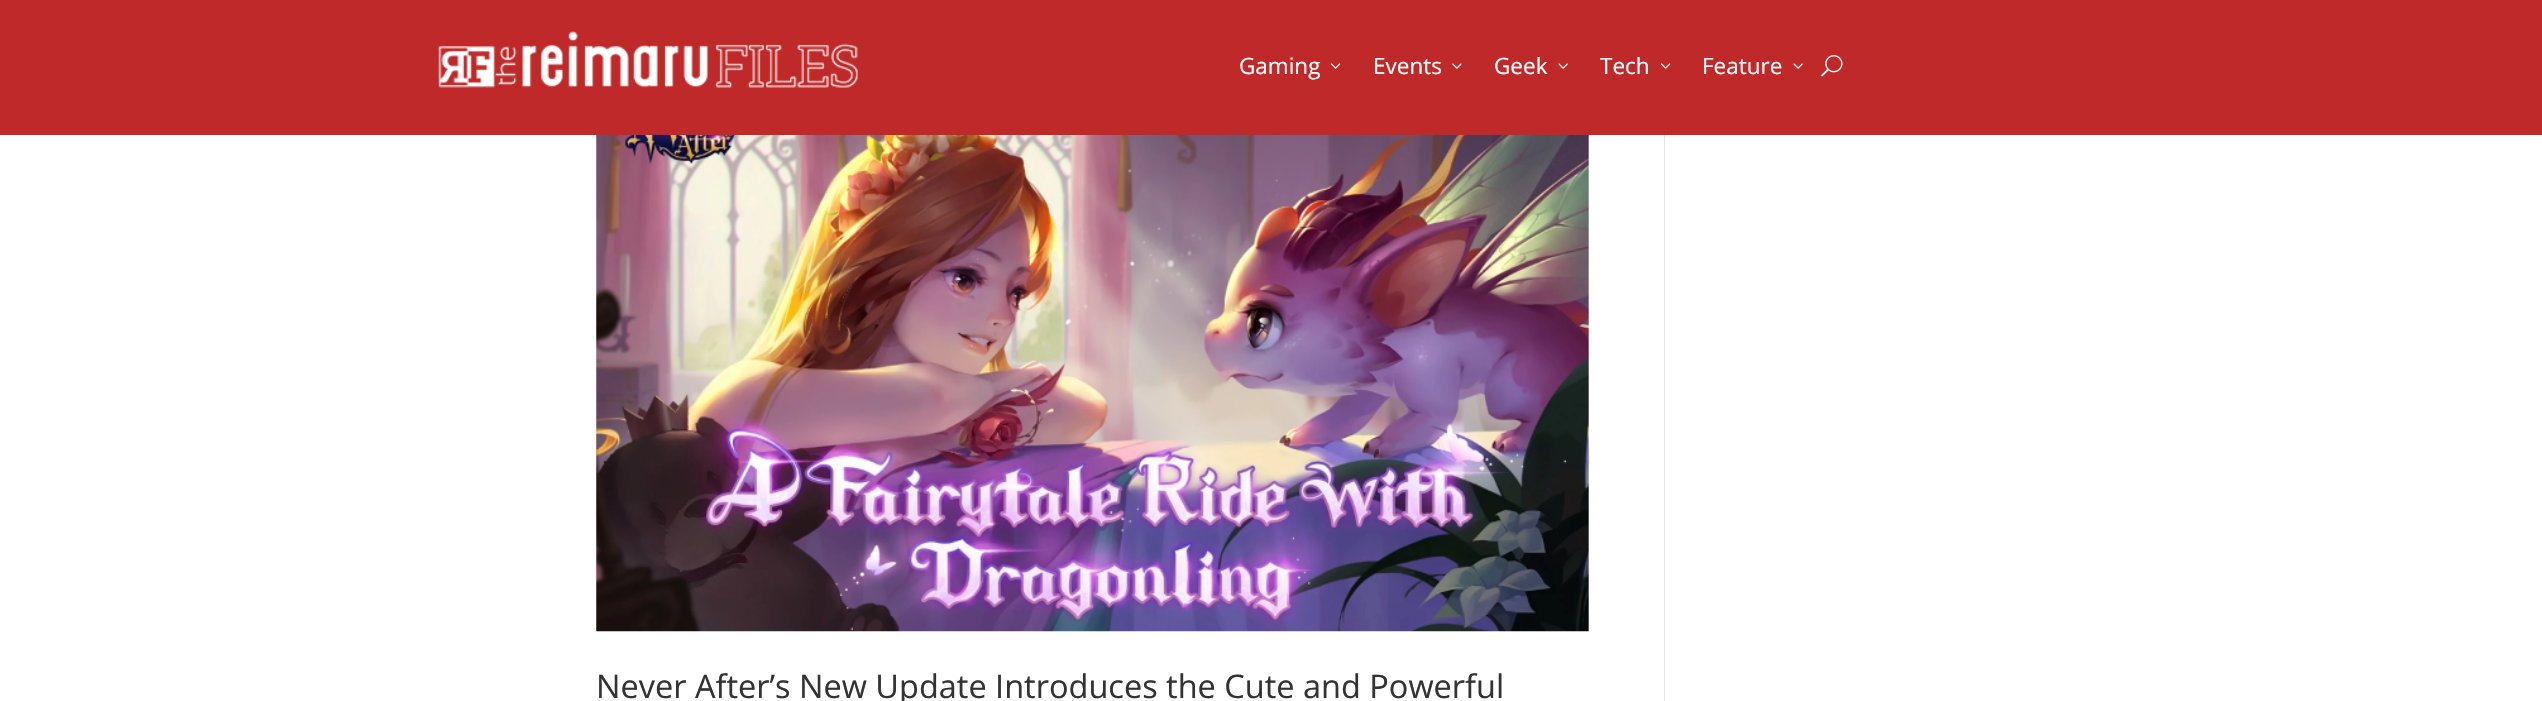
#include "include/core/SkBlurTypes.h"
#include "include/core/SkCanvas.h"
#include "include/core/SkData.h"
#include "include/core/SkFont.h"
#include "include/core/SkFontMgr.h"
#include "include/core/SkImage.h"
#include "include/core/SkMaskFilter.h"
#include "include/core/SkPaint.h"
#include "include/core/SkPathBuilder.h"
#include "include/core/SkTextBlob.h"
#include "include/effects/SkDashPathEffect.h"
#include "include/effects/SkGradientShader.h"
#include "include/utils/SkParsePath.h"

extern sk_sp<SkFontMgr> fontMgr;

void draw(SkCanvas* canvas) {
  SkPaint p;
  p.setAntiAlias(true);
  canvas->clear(SK_ColorWHITE);
  p.setColor(SkColorSetRGB(191, 41, 41));
  canvas->drawRect(SkRect::MakeLTRB(0, 0, 2542, 135), p);
  canvas->drawImageRect(SkImages::DeferredFromEncodedData(SkData::MakeFromFileName("images/1.png")), SkRect::MakeLTRB(438, 31, 858, 88), SkSamplingOptions());
  canvas->drawImageRect(SkImages::DeferredFromEncodedData(SkData::MakeFromFileName("images/2.png")), SkRect::MakeLTRB(1331, 63, 1341, 69), SkSamplingOptions());
  canvas->drawImageRect(SkImages::DeferredFromEncodedData(SkData::MakeFromFileName("images/3.png")), SkRect::MakeLTRB(1452, 63, 1462, 69), SkSamplingOptions());
  canvas->drawImageRect(SkImages::DeferredFromEncodedData(SkData::MakeFromFileName("images/4.png")), SkRect::MakeLTRB(1558, 63, 1568, 69), SkSamplingOptions());
  canvas->drawImageRect(SkImages::DeferredFromEncodedData(SkData::MakeFromFileName("images/2.png")), SkRect::MakeLTRB(1661, 63, 1671, 69), SkSamplingOptions());
  canvas->drawImageRect(SkImages::DeferredFromEncodedData(SkData::MakeFromFileName("images/4.png")), SkRect::MakeLTRB(1793, 63, 1803, 69), SkSamplingOptions());
  canvas->drawImageRect(SkImages::DeferredFromEncodedData(SkData::MakeFromFileName("images/5.png")), SkRect::MakeLTRB(1821, 55, 1843, 77), SkSamplingOptions());
  canvas->drawImageRect(SkImages::DeferredFromEncodedData(SkData::MakeFromFileName("images/6.png")), SkRect::MakeLTRB(596, 135, 1589, 632), SkSamplingOptions());
  p.setColor(SkColorSetRGB(226, 226, 226));
  canvas->drawRect(SkRect::MakeLTRB(1664, 135, 1665, 701), p);
  SkFont font1(fontMgr->matchFamilyStyle("Open Sans", SkFontStyle::Normal()), 22.5f);
  font1.setSubpixel(true);
  p.setColor(SK_ColorWHITE);
  canvas->drawString("Gaming", 1239, 74, font1, p);
  canvas->drawString("Events", 1373, 74, font1, p);
  canvas->drawString("Geek", 1494, 74, font1, p);
  canvas->drawString("Tech", 1600, 74, font1, p);
  canvas->drawString("Feature", 1702, 74, font1, p);
  SkFont font2(fontMgr->matchFamilyStyle("Open Sans", SkFontStyle::Normal()), 32.5f);
  font2.setSubpixel(true);
  p.setColor(SkColorSetRGB(51, 51, 51));
  canvas->drawString("Never After’s New Update Introduces the Cute and Powerful", 596, 698, font2, p);
}
